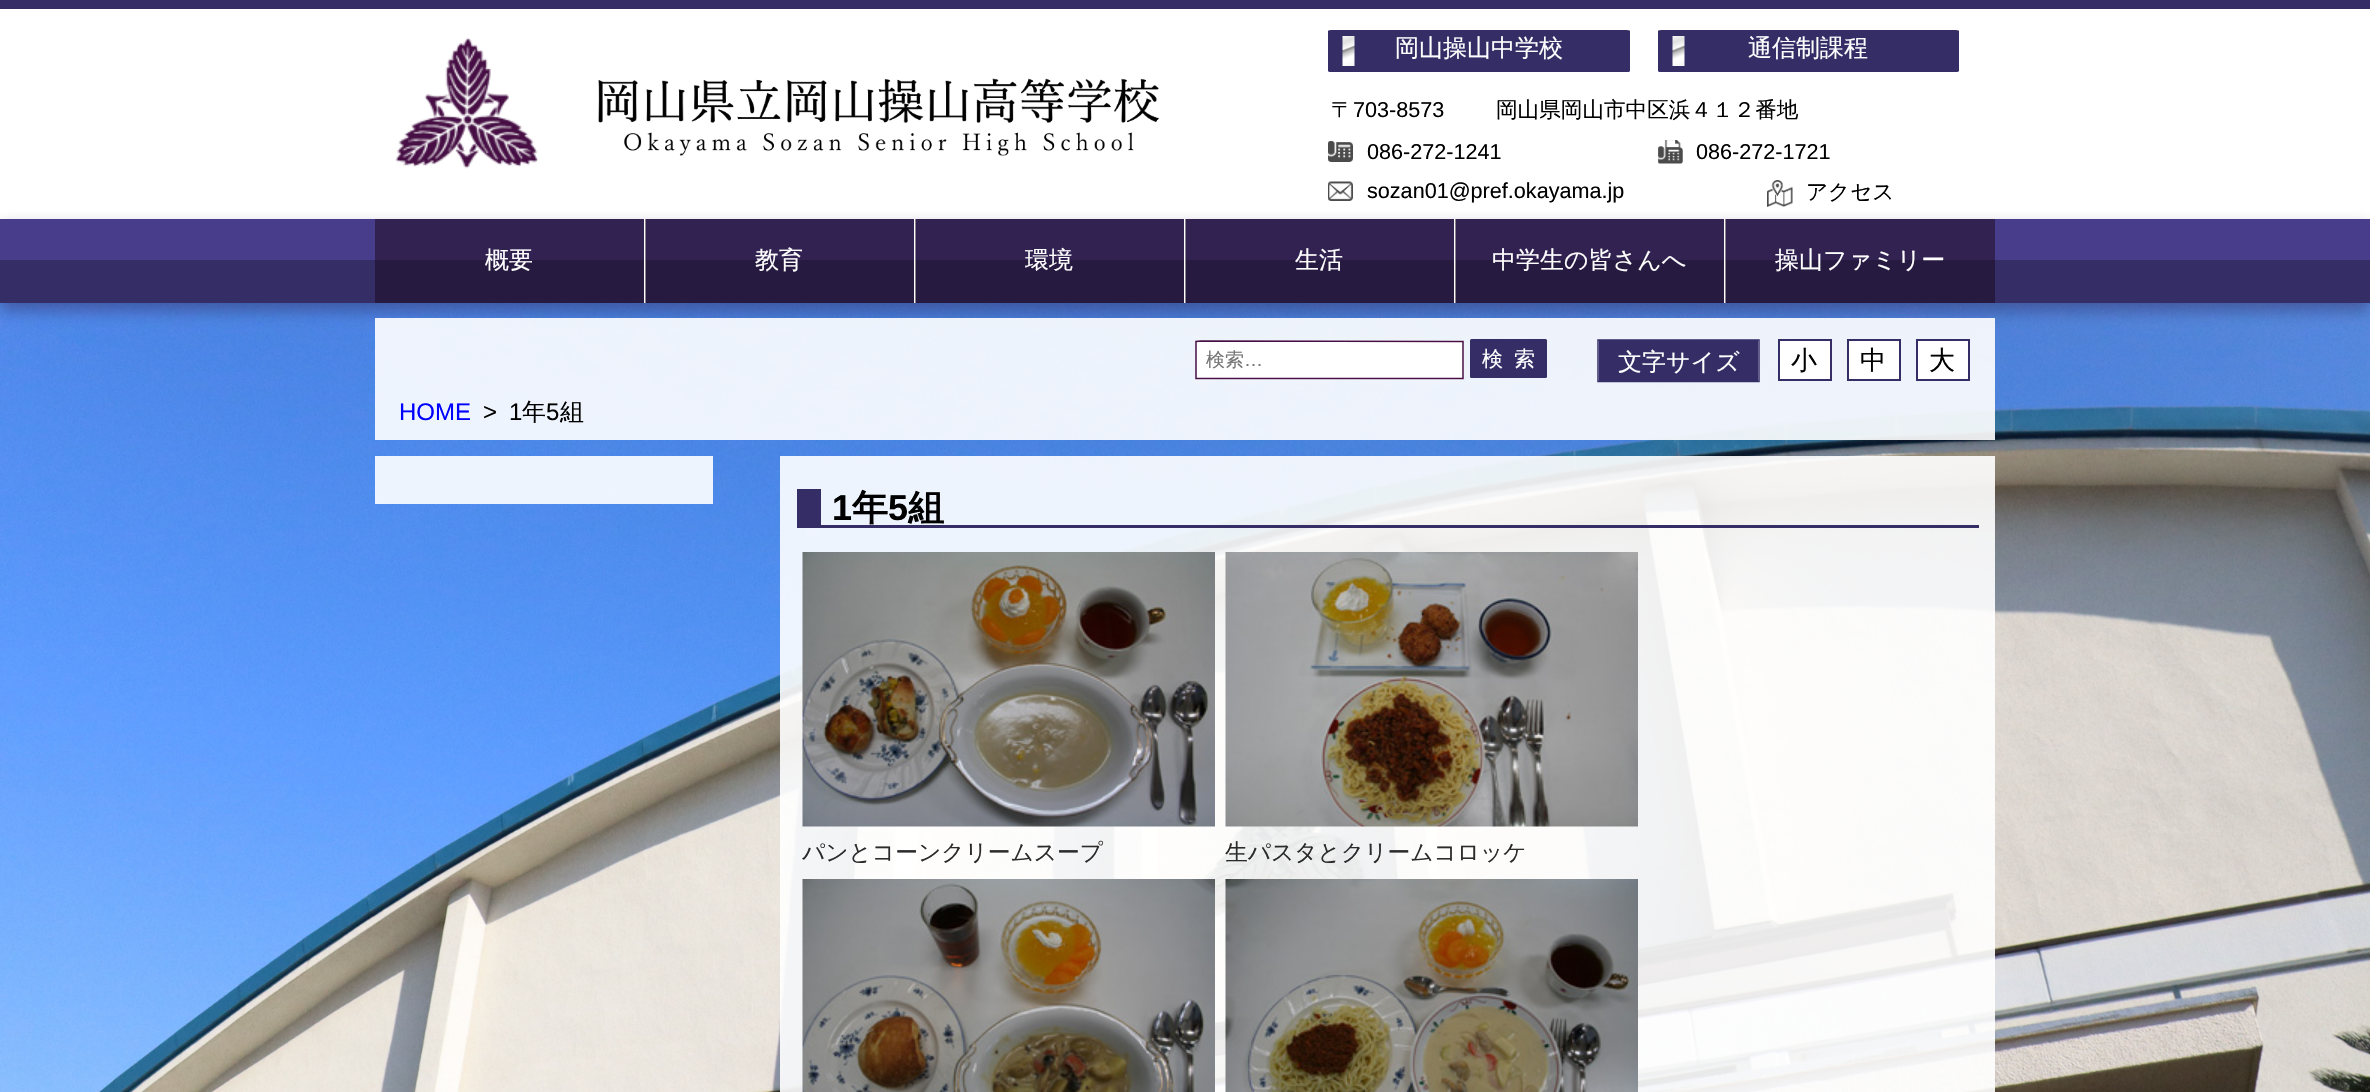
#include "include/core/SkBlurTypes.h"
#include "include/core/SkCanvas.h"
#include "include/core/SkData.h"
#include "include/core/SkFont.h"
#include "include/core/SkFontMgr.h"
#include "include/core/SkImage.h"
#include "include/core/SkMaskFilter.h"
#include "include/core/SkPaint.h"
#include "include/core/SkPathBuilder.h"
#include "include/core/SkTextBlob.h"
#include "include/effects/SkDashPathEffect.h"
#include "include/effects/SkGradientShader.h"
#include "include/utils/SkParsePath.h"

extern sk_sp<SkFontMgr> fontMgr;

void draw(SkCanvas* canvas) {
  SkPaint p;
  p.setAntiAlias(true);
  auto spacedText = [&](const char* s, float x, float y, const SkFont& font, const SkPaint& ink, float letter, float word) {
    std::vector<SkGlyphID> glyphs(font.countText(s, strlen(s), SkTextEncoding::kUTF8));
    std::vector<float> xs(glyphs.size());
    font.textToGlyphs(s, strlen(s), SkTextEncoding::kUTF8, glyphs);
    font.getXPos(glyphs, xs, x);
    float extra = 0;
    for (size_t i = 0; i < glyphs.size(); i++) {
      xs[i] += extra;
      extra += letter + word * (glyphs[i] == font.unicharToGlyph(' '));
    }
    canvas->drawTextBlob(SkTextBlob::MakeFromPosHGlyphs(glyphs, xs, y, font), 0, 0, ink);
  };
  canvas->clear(SK_ColorWHITE);
  p.setColor(SkColorSetRGB(52, 45, 102));
  canvas->drawRect(SkRect::MakeLTRB(0, 0, 2370, 9), p);
  canvas->drawImageRect(SkImages::DeferredFromEncodedData(SkData::MakeFromFileName("images/1.png")), SkRect::MakeLTRB(395, 37, 538, 169), SkSamplingOptions());
  canvas->drawImageRect(SkImages::DeferredFromEncodedData(SkData::MakeFromFileName("images/2.png")), SkRect::MakeLTRB(598, 78, 1160, 156), SkSamplingOptions());
  canvas->drawPath(SkPathBuilder().moveTo(1334, 30).lineTo(1624, 30).cubicTo(1628, 30, 1630, 30, 1630, 31).lineTo(1630, 71).cubicTo(1630, 72, 1628, 72, 1624, 72).lineTo(1334, 72).cubicTo(1330, 72, 1328, 72, 1328, 71).lineTo(1328, 31).cubicTo(1328, 30, 1330, 30, 1334, 30).close().detach(), p);
  canvas->drawImageRect(SkImages::DeferredFromEncodedData(SkData::MakeFromFileName("images/3.png")), SkRect::MakeLTRB(1342, 36, 1355, 66), SkSamplingOptions());
  canvas->drawPath(SkPathBuilder().moveTo(1664, 30).lineTo(1953, 30).cubicTo(1956, 30, 1959, 30, 1959, 31).lineTo(1959, 71).cubicTo(1959, 72, 1956, 72, 1953, 72).lineTo(1664, 72).cubicTo(1660, 72, 1658, 72, 1658, 71).lineTo(1658, 31).cubicTo(1658, 30, 1660, 30, 1664, 30).close().detach(), p);
  canvas->drawImageRect(SkImages::DeferredFromEncodedData(SkData::MakeFromFileName("images/4.png")), SkRect::MakeLTRB(1672, 36, 1685, 66), SkSamplingOptions());
  canvas->drawImageRect(SkImages::DeferredFromEncodedData(SkData::MakeFromFileName("images/5.png")), SkRect::MakeLTRB(1328, 141, 1353, 162), SkSamplingOptions());
  canvas->drawImageRect(SkImages::DeferredFromEncodedData(SkData::MakeFromFileName("images/6.png")), SkRect::MakeLTRB(1658, 140, 1683, 164), SkSamplingOptions());
  canvas->drawImageRect(SkImages::DeferredFromEncodedData(SkData::MakeFromFileName("images/7.png")), SkRect::MakeLTRB(1328, 181, 1353, 201), SkSamplingOptions());
  canvas->drawImageRect(SkImages::DeferredFromEncodedData(SkData::MakeFromFileName("images/9.png")), SkRect::MakeLTRB(0, 303, 2370, 1092), SkSamplingOptions());
  p.setColor(SkColorSetARGB(128, 52, 45, 102));
  p.setMaskFilter(SkMaskFilter::MakeBlur(kNormal_SkBlurStyle, 7.5f));
  canvas->drawRect(SkRect::MakeLTRB(0, 227, 2370, 311), p);
  p.setMaskFilter(nullptr);
  canvas->drawImageRect(SkImages::DeferredFromEncodedData(SkData::MakeFromFileName("images/8.png")), SkRect::MakeLTRB(1767, 180, 1793, 207), SkSamplingOptions());
  p.setColor(SkColorSetRGB(72, 61, 139));
  canvas->drawRect(SkRect::MakeLTRB(0, 219, 2370, 260), p);
  p.setColor(SkColorSetRGB(52, 45, 102));
  canvas->drawRect(SkRect::MakeLTRB(0, 260, 2370, 303), p);
  p.setColor(SkColorSetARGB(128, 26, 5, 25));
  canvas->drawRect(SkRect::MakeLTRB(375, 219, 644, 303), p);
  p.setColor(SK_ColorWHITE);
  canvas->drawRect(SkRect::MakeLTRB(644, 219, 646, 303), p);
  p.setColor(SkColorSetARGB(128, 26, 5, 25));
  canvas->drawRect(SkRect::MakeLTRB(645, 219, 914, 303), p);
  p.setColor(SK_ColorWHITE);
  canvas->drawRect(SkRect::MakeLTRB(914, 219, 916, 303), p);
  p.setColor(SkColorSetARGB(128, 26, 5, 25));
  canvas->drawRect(SkRect::MakeLTRB(915, 219, 1184, 303), p);
  p.setColor(SK_ColorWHITE);
  canvas->drawRect(SkRect::MakeLTRB(1184, 219, 1186, 303), p);
  p.setColor(SkColorSetARGB(128, 26, 5, 25));
  canvas->drawRect(SkRect::MakeLTRB(1185, 219, 1454, 303), p);
  p.setColor(SK_ColorWHITE);
  canvas->drawRect(SkRect::MakeLTRB(1454, 219, 1456, 303), p);
  p.setColor(SkColorSetARGB(128, 26, 5, 25));
  canvas->drawRect(SkRect::MakeLTRB(1455, 219, 1724, 303), p);
  p.setColor(SK_ColorWHITE);
  canvas->drawRect(SkRect::MakeLTRB(1724, 219, 1726, 303), p);
  p.setColor(SkColorSetARGB(128, 26, 5, 25));
  canvas->drawRect(SkRect::MakeLTRB(1725, 219, 1995, 303), p);
  p.setColor(SkColorSetARGB(230, 255, 255, 255));
  canvas->drawRect(SkRect::MakeLTRB(375, 318, 1995, 440), p);
  p.setColor(SK_ColorWHITE);
  canvas->drawPath(SkPathBuilder().moveTo(1201, 340).lineTo(1459, 340).cubicTo(1462, 340, 1464, 341, 1464, 341).lineTo(1464, 379).cubicTo(1464, 379, 1462, 380, 1459, 380).lineTo(1201, 380).cubicTo(1198, 380, 1196, 379, 1196, 379).lineTo(1196, 341).cubicTo(1196, 341, 1198, 340, 1201, 340).close().detach(), p);
  p.setStyle(SkPaint::kStroke_Style);
  p.setStrokeWidth(1.5f);
  p.setColor(SkColorSetRGB(70, 14, 68));
  canvas->drawPath(SkPathBuilder().moveTo(1201, 341).lineTo(1463, 341.5f).lineTo(1463, 378.5f).lineTo(1196, 378.5f).lineTo(1196, 341.5f).close().detach(), p);
  p.setStyle(SkPaint::kFill_Style);
  p.setColor(SkColorSetRGB(52, 45, 102));
  canvas->drawRoundRect(SkRect::MakeLTRB(1470, 339, 1547, 378), 1.5f, 1.5f, p);
  canvas->drawPath(SkPathBuilder().moveTo(1601, 340).lineTo(1758, 340).lineTo(1758, 381).lineTo(1599, 381).lineTo(1599, 340).close().detach(), p);
  p.setStyle(SkPaint::kStroke_Style);
  canvas->drawPath(SkPathBuilder().moveTo(1600.5f, 340).lineTo(1759, 340).lineTo(1759, 381.5f).lineTo(1598, 381.5f).lineTo(1598, 340).close().detach(), p);
  p.setStyle(SkPaint::kFill_Style);
  p.setColor(SK_ColorWHITE);
  canvas->drawRect(SkRect::MakeLTRB(1779, 340, 1831, 380), p);
  p.setStyle(SkPaint::kStroke_Style);
  p.setStrokeWidth(2);
  p.setColor(SkColorSetRGB(52, 45, 102));
  canvas->drawRect(SkRect::MakeLTRB(1779, 340, 1831, 380), p);
  p.setStyle(SkPaint::kFill_Style);
  p.setColor(SK_ColorWHITE);
  canvas->drawRect(SkRect::MakeLTRB(1848, 340, 1900, 380), p);
  p.setStyle(SkPaint::kStroke_Style);
  p.setColor(SkColorSetRGB(52, 45, 102));
  canvas->drawRect(SkRect::MakeLTRB(1848, 340, 1900, 380), p);
  p.setStyle(SkPaint::kFill_Style);
  p.setColor(SK_ColorWHITE);
  canvas->drawRect(SkRect::MakeLTRB(1917, 340, 1969, 380), p);
  p.setStyle(SkPaint::kStroke_Style);
  p.setColor(SkColorSetRGB(52, 45, 102));
  canvas->drawRect(SkRect::MakeLTRB(1917, 340, 1969, 380), p);
  p.setStyle(SkPaint::kFill_Style);
  p.setColor(SkColorSetARGB(230, 255, 255, 255));
  canvas->drawRect(SkRect::MakeLTRB(375, 456, 713, 504), p);
  canvas->drawRect(SkRect::MakeLTRB(780, 456, 1995, 1092), p);
  p.setColor(SkColorSetRGB(52, 45, 102));
  canvas->drawRect(SkRect::MakeLTRB(821, 525, 1979, 528), p);
  canvas->drawRect(SkRect::MakeLTRB(797, 489, 821, 528), p);
  canvas->drawImageRect(SkImages::DeferredFromEncodedData(SkData::MakeFromFileName("images/10.png")), SkRect::MakeLTRB(802, 552, 1215, 827), SkSamplingOptions());
  canvas->drawImageRect(SkImages::DeferredFromEncodedData(SkData::MakeFromFileName("images/11.png")), SkRect::MakeLTRB(1225, 552, 1638, 827), SkSamplingOptions());
  canvas->drawImageRect(SkImages::DeferredFromEncodedData(SkData::MakeFromFileName("images/12.png")), SkRect::MakeLTRB(802, 879, 1215, 1092), SkSamplingOptions());
  canvas->drawImageRect(SkImages::DeferredFromEncodedData(SkData::MakeFromFileName("images/13.png")), SkRect::MakeLTRB(1225, 879, 1638, 1092), SkSamplingOptions());
  SkFont font1(fontMgr->matchFamilyStyle("WenQuanYi Zen Hei", SkFontStyle(500, SkFontStyle::kNormal_Width, SkFontStyle::kUpright_Slant)), 24);
  font1.setSubpixel(true);
  p.setColor(SK_ColorWHITE);
  canvas->drawString("岡山操山中学校", 1395, 56, font1, p);
  canvas->drawString("通信制課程", 1748, 56, font1, p);
  SkFont font2(fontMgr->matchFamilyStyle("WenQuanYi Zen Hei", SkFontStyle(500, SkFontStyle::kNormal_Width, SkFontStyle::kUpright_Slant)), 21.6f);
  font2.setSubpixel(true);
  p.setColor(SK_ColorBLACK);
  canvas->drawString("〒", 1331, 117, font2, p);
  SkFont font3(fontMgr->matchFamilyStyle("Liberation Sans", SkFontStyle::Normal()), 21.6f);
  font3.setSubpixel(true);
  canvas->drawString("703-8573", 1353, 117, font3, p);
  canvas->drawString("岡山県岡山市中区浜４１２番地", 1496, 117, font2, p);
  canvas->drawString("086-272-1241", 1367, 159, font3, p);
  canvas->drawString("086-272-1721", 1696, 159, font3, p);
  canvas->drawString("sozan01@pref.okayama.jp", 1367, 198, font3, p);
  canvas->drawString("アクセス", 1806, 199, font2, p);
  p.setColor(SK_ColorWHITE);
  canvas->drawString("概要", 485, 268, font1, p);
  canvas->drawString("教育", 755, 268, font1, p);
  canvas->drawString("環境", 1025, 268, font1, p);
  canvas->drawString("生活", 1295, 268, font1, p);
  canvas->drawString("中学生の皆さんへ", 1492, 268, font1, p);
  canvas->drawString("操山ファミリー", 1775, 268, font1, p);
  SkFont font4(fontMgr->matchFamilyStyle("WenQuanYi Zen Hei", SkFontStyle(500, SkFontStyle::kNormal_Width, SkFontStyle::kUpright_Slant)), 19);
  font4.setSubpixel(true);
  p.setColor(SkColorSetRGB(117, 117, 117));
  canvas->drawString("検索", 1206, 366, font4, p);
  SkFont font5(fontMgr->matchFamilyStyle("Liberation Sans", SkFontStyle::Normal()), 19);
  font5.setSubpixel(true);
  canvas->drawString("…", 1244, 366, font5, p);
  SkFont font6(fontMgr->matchFamilyStyle("WenQuanYi Zen Hei", SkFontStyle(500, SkFontStyle::kNormal_Width, SkFontStyle::kUpright_Slant)), 21);
  font6.setSubpixel(true);
  p.setColor(SK_ColorWHITE);
  spacedText("検索", 1482, 366, font6, p, 11, 0);
  canvas->drawString("文字サイズ", 1618, 370, font1, p);
  SkFont font7(fontMgr->matchFamilyStyle("WenQuanYi Zen Hei", SkFontStyle(500, SkFontStyle::kNormal_Width, SkFontStyle::kUpright_Slant)), 26);
  font7.setSubpixel(true);
  p.setColor(SK_ColorBLACK);
  canvas->drawString("小", 1791, 369, font7, p);
  canvas->drawString("中", 1860, 369, font7, p);
  canvas->drawString("大", 1929, 369, font7, p);
  SkFont font8(fontMgr->matchFamilyStyle("Liberation Sans", SkFontStyle::Normal()), 24);
  font8.setSubpixel(true);
  p.setColor(SkColorSetRGB(0, 0, 255));
  canvas->drawString("HOME", 399, 420, font8, p);
  p.setColor(SK_ColorBLACK);
  canvas->drawString(">", 483, 420, font8, p);
  canvas->drawString("1", 509, 420, font8, p);
  canvas->drawString("年", 522, 420, font1, p);
  canvas->drawString("5", 546, 420, font8, p);
  canvas->drawString("組", 560, 420, font1, p);
  SkFont font9(fontMgr->matchFamilyStyle("Liberation Sans", SkFontStyle::Bold()), 36);
  font9.setSubpixel(true);
  canvas->drawString("1", 832, 520, font9, p);
  SkFont font10(fontMgr->matchFamilyStyle("WenQuanYi Zen Hei", SkFontStyle::Bold()), 36);
  font10.setSubpixel(true);
  canvas->drawString("年", 852, 520, font10, p);
  canvas->drawString("5", 888, 520, font9, p);
  canvas->drawString("組", 908, 520, font10, p);
  SkFont font11(fontMgr->matchFamilyStyle("WenQuanYi Zen Hei", SkFontStyle(500, SkFontStyle::kNormal_Width, SkFontStyle::kUpright_Slant)), 22.75f);
  font11.setSubpixel(true);
  p.setColor(SkColorSetRGB(43, 43, 43));
  canvas->drawString("パンとコーンクリームスープ", 802, 860, font11, p);
  canvas->drawString("生パスタとクリームコロッケ", 1225, 860, font11, p);
}
